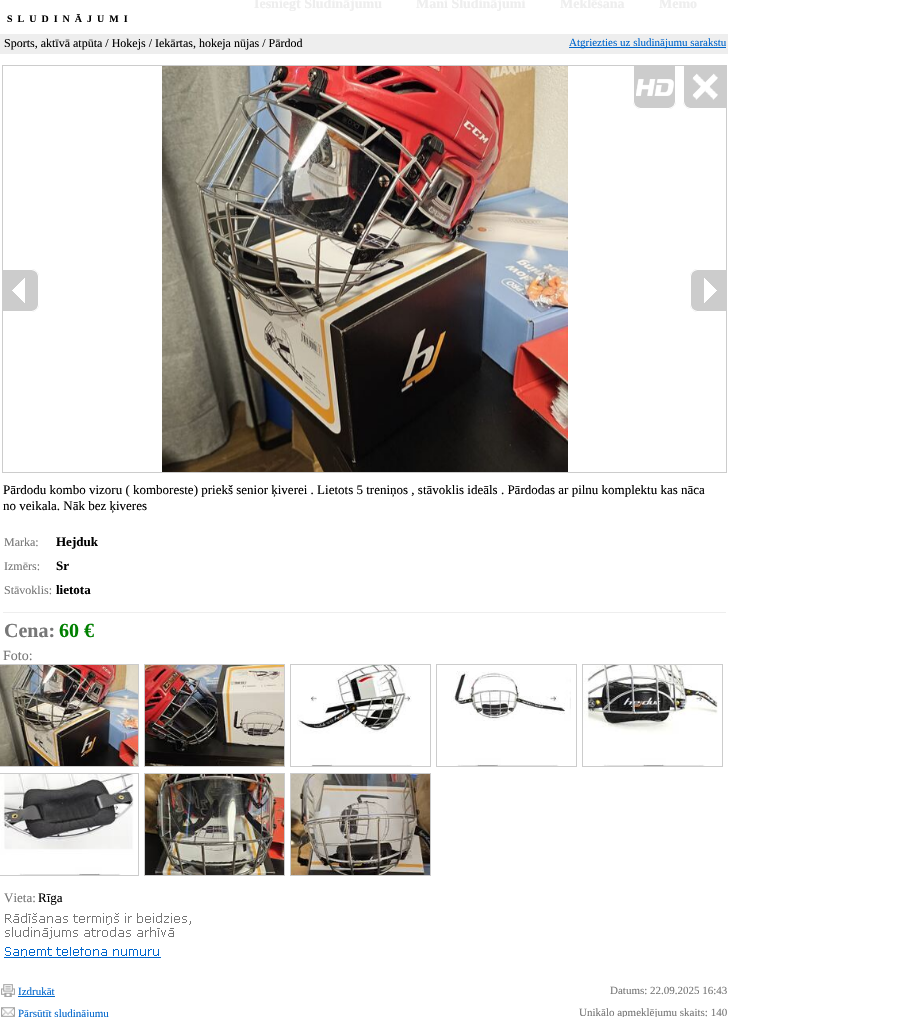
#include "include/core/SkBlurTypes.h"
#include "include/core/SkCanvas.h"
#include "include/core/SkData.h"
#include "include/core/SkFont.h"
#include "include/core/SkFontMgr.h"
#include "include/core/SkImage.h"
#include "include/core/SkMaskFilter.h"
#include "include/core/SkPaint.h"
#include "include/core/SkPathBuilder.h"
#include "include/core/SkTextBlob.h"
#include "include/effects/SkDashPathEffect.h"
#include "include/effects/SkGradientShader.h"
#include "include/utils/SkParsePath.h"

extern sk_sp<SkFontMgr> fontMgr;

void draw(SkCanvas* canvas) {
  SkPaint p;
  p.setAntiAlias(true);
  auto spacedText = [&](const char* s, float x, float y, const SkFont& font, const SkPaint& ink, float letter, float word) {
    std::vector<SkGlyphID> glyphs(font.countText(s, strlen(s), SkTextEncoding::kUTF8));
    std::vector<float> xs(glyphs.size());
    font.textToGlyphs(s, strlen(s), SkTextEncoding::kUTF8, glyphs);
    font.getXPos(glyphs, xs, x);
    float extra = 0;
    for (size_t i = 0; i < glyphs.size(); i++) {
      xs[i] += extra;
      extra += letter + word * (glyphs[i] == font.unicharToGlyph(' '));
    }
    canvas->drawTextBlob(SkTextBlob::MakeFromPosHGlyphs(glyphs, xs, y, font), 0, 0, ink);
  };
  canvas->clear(SK_ColorWHITE);
  p.setColor(SkColorSetRGB(238, 238, 238));
  canvas->drawRect(SkRect::MakeLTRB(0, 34, 728, 54), p);
  p.setColor(SkColorSetRGB(0, 102, 204));
  canvas->drawRect(SkRect::MakeLTRB(569, 47, 726, 48), p);
  p.setStyle(SkPaint::kStroke_Style);
  p.setStrokeWidth(1);
  p.setColor(SkColorSetRGB(204, 204, 204));
  canvas->drawRect(SkRect::MakeLTRB(2.5f, 65.5f, 726.5f, 472.5f), p);
  canvas->drawImageRect(SkImages::DeferredFromEncodedData(SkData::MakeFromFileName("images/1.png")), SkRect::MakeLTRB(162, 66, 568, 472), SkSamplingOptions());
  canvas->drawImageRect(SkImages::DeferredFromEncodedData(SkData::MakeFromFileName("images/2.png")), SkRect::MakeLTRB(633, 66, 676, 109), SkSamplingOptions());
  canvas->drawImageRect(SkImages::DeferredFromEncodedData(SkData::MakeFromFileName("images/3.png")), SkRect::MakeLTRB(683, 66, 726, 109), SkSamplingOptions());
  canvas->drawImageRect(SkImages::DeferredFromEncodedData(SkData::MakeFromFileName("images/4.png")), SkRect::MakeLTRB(3, 269, 39, 312), SkSamplingOptions());
  canvas->drawImageRect(SkImages::DeferredFromEncodedData(SkData::MakeFromFileName("images/5.png")), SkRect::MakeLTRB(690, 269, 726, 312), SkSamplingOptions());
  p.setStyle(SkPaint::kFill_Style);
  p.setColor(SkColorSetRGB(238, 238, 238));
  canvas->drawRect(SkRect::MakeLTRB(3, 612, 726, 613), p);
  p.setStyle(SkPaint::kStroke_Style);
  p.setColor(SkColorSetRGB(204, 204, 204));
  canvas->drawRect(SkRect::MakeLTRB(-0.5f, 664.5f, 138.5f, 766.5f), p);
  canvas->drawImageRect(SkImages::DeferredFromEncodedData(SkData::MakeFromFileName("images/6.png")), SkRect::MakeLTRB(0, 665, 138, 766), SkSamplingOptions());
  canvas->drawRect(SkRect::MakeLTRB(144.5f, 664.5f, 284.5f, 766.5f), p);
  canvas->drawImageRect(SkImages::DeferredFromEncodedData(SkData::MakeFromFileName("images/7.png")), SkRect::MakeLTRB(145, 665, 284, 766), SkSamplingOptions());
  canvas->drawRect(SkRect::MakeLTRB(290.5f, 664.5f, 430.5f, 766.5f), p);
  canvas->drawImageRect(SkImages::DeferredFromEncodedData(SkData::MakeFromFileName("images/8.png")), SkRect::MakeLTRB(297, 665, 412, 766), SkSamplingOptions());
  canvas->drawRect(SkRect::MakeLTRB(436.5f, 664.5f, 576.5f, 766.5f), p);
  canvas->drawImageRect(SkImages::DeferredFromEncodedData(SkData::MakeFromFileName("images/9.png")), SkRect::MakeLTRB(451, 671, 571, 766), SkSamplingOptions());
  canvas->drawRect(SkRect::MakeLTRB(582.5f, 664.5f, 722.5f, 766.5f), p);
  canvas->drawImageRect(SkImages::DeferredFromEncodedData(SkData::MakeFromFileName("images/10.png")), SkRect::MakeLTRB(583, 665, 718, 766), SkSamplingOptions());
  canvas->drawRect(SkRect::MakeLTRB(-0.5f, 773.5f, 138.5f, 875.5f), p);
  canvas->drawImageRect(SkImages::DeferredFromEncodedData(SkData::MakeFromFileName("images/11.png")), SkRect::MakeLTRB(0, 774, 134, 875), SkSamplingOptions());
  canvas->drawRect(SkRect::MakeLTRB(144.5f, 773.5f, 284.5f, 875.5f), p);
  canvas->drawImageRect(SkImages::DeferredFromEncodedData(SkData::MakeFromFileName("images/12.png")), SkRect::MakeLTRB(145, 774, 284, 875), SkSamplingOptions());
  canvas->drawRect(SkRect::MakeLTRB(290.5f, 773.5f, 430.5f, 875.5f), p);
  canvas->drawImageRect(SkImages::DeferredFromEncodedData(SkData::MakeFromFileName("images/13.png")), SkRect::MakeLTRB(291, 774, 430, 875), SkSamplingOptions());
  canvas->drawImageRect(SkImages::DeferredFromEncodedData(SkData::MakeFromFileName("images/14.png")), SkRect::MakeLTRB(5, 913, 191, 939), SkSamplingOptions());
  canvas->drawImageRect(SkImages::DeferredFromEncodedData(SkData::MakeFromFileName("images/15.png")), SkRect::MakeLTRB(4, 947, 161, 958), SkSamplingOptions());
  canvas->drawImageRect(SkImages::DeferredFromEncodedData(SkData::MakeFromFileName("images/16.png")), SkRect::MakeLTRB(1, 984, 15, 997), SkSamplingOptions());
  p.setStyle(SkPaint::kFill_Style);
  p.setColor(SkColorSetRGB(0, 102, 204));
  canvas->drawRect(SkRect::MakeLTRB(18, 996, 55, 997), p);
  canvas->drawImageRect(SkImages::DeferredFromEncodedData(SkData::MakeFromFileName("images/17.png")), SkRect::MakeLTRB(1, 1007, 15, 1017), SkSamplingOptions());
  SkFont font1(fontMgr->matchFamilyStyle("Liberation Serif", SkFontStyle::Bold()), 14);
  font1.setSubpixel(true);
  p.setColor(SkColorSetRGB(238, 238, 238));
  canvas->drawString("Iesniegt Sludinājumu", 254, 8, font1, p);
  canvas->drawString("Mani Sludinājumi", 416, 8, font1, p);
  canvas->drawString("Meklēšana", 560, 8, font1, p);
  canvas->drawString("Memo", 659, 8, font1, p);
  SkFont font2(fontMgr->matchFamilyStyle("Liberation Serif", SkFontStyle::Bold()), 10);
  font2.setSubpixel(true);
  p.setColor(SK_ColorBLACK);
  spacedText("SLUDINĀJUMI", 7, 22, font2, p, 5, 0);
  SkFont font3(fontMgr->matchFamilyStyle("Liberation Serif", SkFontStyle::Normal()), 12);
  font3.setSubpixel(true);
  canvas->drawString("Sports, aktīvā atpūta / Hokejs / Iekārtas, hokeja nūjas / Pārdod", 4, 47, font3, p);
  SkFont font4(fontMgr->matchFamilyStyle("Liberation Serif", SkFontStyle::Normal()), 11);
  font4.setSubpixel(true);
  p.setColor(SkColorSetRGB(0, 102, 204));
  canvas->drawString("Atgriezties uz sludinājumu sarakstu", 569, 46, font4, p);
  SkFont font5(fontMgr->matchFamilyStyle("Liberation Serif", SkFontStyle::Normal()), 13);
  font5.setSubpixel(true);
  p.setColor(SK_ColorBLACK);
  canvas->drawString("Pārdodu kombo vizoru ( komboreste) priekš senior ķiverei . Lietots 5 treniņos , stāvoklis ideāls . Pārdodas ar pilnu komplektu kas nāca", 3, 494, font5, p);
  canvas->drawString("no veikala. Nāk bez ķiveres", 3, 510, font5, p);
  p.setColor(SkColorSetRGB(119, 119, 119));
  canvas->drawString("Marka:", 4, 546, font3, p);
  SkFont font6(fontMgr->matchFamilyStyle("Liberation Serif", SkFontStyle::Bold()), 13);
  font6.setSubpixel(true);
  p.setColor(SK_ColorBLACK);
  canvas->drawString("Hejduk", 56, 546, font6, p);
  p.setColor(SkColorSetRGB(119, 119, 119));
  canvas->drawString("Izmērs:", 4, 570, font3, p);
  p.setColor(SK_ColorBLACK);
  canvas->drawString("Sr", 56, 570, font6, p);
  p.setColor(SkColorSetRGB(119, 119, 119));
  canvas->drawString("Stāvoklis:", 4, 594, font3, p);
  p.setColor(SK_ColorBLACK);
  canvas->drawString("lietota", 56, 594, font6, p);
  SkFont font7(fontMgr->matchFamilyStyle("Liberation Serif", SkFontStyle::Bold()), 20);
  font7.setSubpixel(true);
  p.setColor(SkColorSetRGB(119, 119, 119));
  canvas->drawString("Cena:", 4, 637, font7, p);
  p.setColor(SkColorSetRGB(0, 128, 0));
  canvas->drawString("60 €", 59, 637, font7, p);
  SkFont font8(fontMgr->matchFamilyStyle("Liberation Serif", SkFontStyle::Normal()), 14);
  font8.setSubpixel(true);
  p.setColor(SkColorSetRGB(119, 119, 119));
  canvas->drawString("Foto:", 3, 660, font8, p);
  canvas->drawString("Vieta:", 4, 902, font5, p);
  p.setColor(SK_ColorBLACK);
  canvas->drawString("Rīga", 38, 902, font5, p);
  p.setColor(SkColorSetRGB(0, 102, 204));
  canvas->drawString("Izdrukāt", 18, 995, font4, p);
  p.setColor(SkColorSetRGB(119, 119, 119));
  canvas->drawString("Datums: 22.09.2025 16:43", 610, 994, font4, p);
  p.setColor(SkColorSetRGB(0, 102, 204));
  canvas->drawString("Pārsūtīt sludinājumu", 18, 1017, font4, p);
  p.setColor(SkColorSetRGB(119, 119, 119));
  canvas->drawString("Unikālo apmeklējumu skaits: 140", 579, 1016, font4, p);
}
